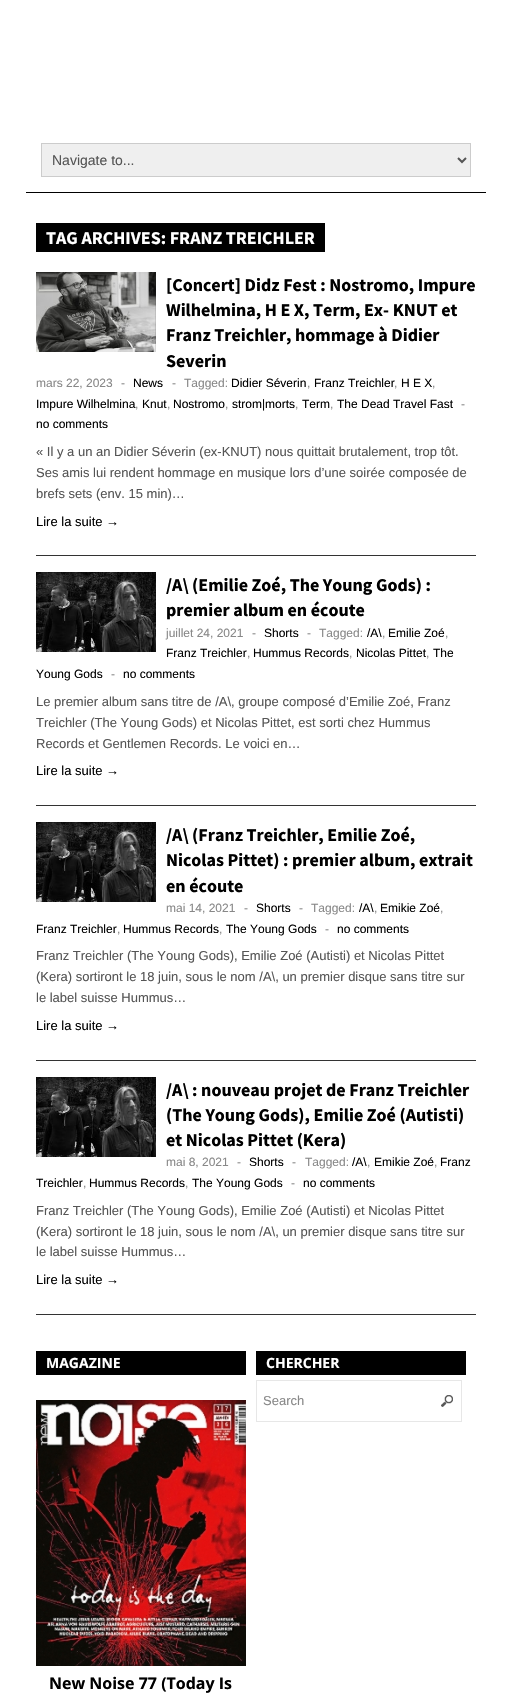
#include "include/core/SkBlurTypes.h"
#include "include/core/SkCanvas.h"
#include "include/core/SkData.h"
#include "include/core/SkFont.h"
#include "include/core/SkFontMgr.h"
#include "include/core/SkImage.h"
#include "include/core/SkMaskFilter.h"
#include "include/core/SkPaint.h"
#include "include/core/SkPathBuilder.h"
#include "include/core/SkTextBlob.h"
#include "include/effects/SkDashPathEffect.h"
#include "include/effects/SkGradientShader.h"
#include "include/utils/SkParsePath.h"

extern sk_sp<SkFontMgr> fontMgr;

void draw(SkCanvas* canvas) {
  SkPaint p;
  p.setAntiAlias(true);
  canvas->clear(SK_ColorWHITE);
  p.setColor(SK_ColorBLACK);
  canvas->drawRect(SkRect::MakeLTRB(26, 192, 486, 193), p);
  p.setColor(SkColorSetRGB(239, 239, 239));
  canvas->drawRect(SkRect::MakeLTRB(41.5f, 143.5f, 470.5f, 176.5f), p);
  p.setStyle(SkPaint::kStroke_Style);
  p.setStrokeWidth(1);
  p.setColor(SkColorSetRGB(204, 204, 204));
  canvas->drawRect(SkRect::MakeLTRB(41.5f, 143.5f, 470.5f, 176.5f), p);
  p.setStrokeWidth(2);
  p.setColor(SkColorSetRGB(85, 85, 85));
  canvas->drawPath(SkPathBuilder().moveTo(458, 158).lineTo(462, 162).lineTo(466, 158).detach(), p);
  p.setStyle(SkPaint::kFill_Style);
  p.setColor(SK_ColorBLACK);
  canvas->drawRect(SkRect::MakeLTRB(36, 223, 325, 252), p);
  p.setColor(SkColorSetRGB(51, 51, 51));
  canvas->drawRect(SkRect::MakeLTRB(36, 555, 476, 556), p);
  canvas->drawImageRect(SkImages::DeferredFromEncodedData(SkData::MakeFromFileName("images/1.png")), SkRect::MakeLTRB(36, 272, 156, 352), SkSamplingOptions());
  canvas->drawRect(SkRect::MakeLTRB(36, 805, 476, 806), p);
  canvas->drawImageRect(SkImages::DeferredFromEncodedData(SkData::MakeFromFileName("images/2.png")), SkRect::MakeLTRB(36, 572, 156, 652), SkSamplingOptions());
  canvas->drawRect(SkRect::MakeLTRB(36, 1060, 476, 1061), p);
  canvas->drawImageRect(SkImages::DeferredFromEncodedData(SkData::MakeFromFileName("images/3.png")), SkRect::MakeLTRB(36, 822, 156, 902), SkSamplingOptions());
  canvas->drawRect(SkRect::MakeLTRB(36, 1314, 476, 1315), p);
  canvas->drawImageRect(SkImages::DeferredFromEncodedData(SkData::MakeFromFileName("images/4.png")), SkRect::MakeLTRB(36, 1077, 156, 1157), SkSamplingOptions());
  p.setColor(SK_ColorBLACK);
  canvas->drawRect(SkRect::MakeLTRB(36, 1351, 246, 1375), p);
  canvas->drawImageRect(SkImages::DeferredFromEncodedData(SkData::MakeFromFileName("images/5.png")), SkRect::MakeLTRB(36, 1400, 246, 1666), SkSamplingOptions());
  canvas->drawRect(SkRect::MakeLTRB(256, 1351, 466, 1375), p);
  canvas->drawImageRect(SkImages::DeferredFromEncodedData(SkData::MakeFromFileName("images/6.png")), SkRect::MakeLTRB(441, 1395, 453, 1407), SkSamplingOptions());
  p.setStyle(SkPaint::kStroke_Style);
  p.setStrokeWidth(1);
  p.setColor(SkColorSetRGB(231, 231, 231));
  canvas->drawRect(SkRect::MakeLTRB(256.5f, 1380.5f, 461.5f, 1421.5f), p);
  SkFont font1(fontMgr->matchFamilyStyle("Liberation Sans", SkFontStyle::Normal()), 14);
  font1.setSubpixel(true);
  p.setStyle(SkPaint::kFill_Style);
  p.setColor(SkColorSetRGB(85, 85, 85));
  canvas->drawString("Navigate to...", 52, 165, font1, p);
  SkFont font2(fontMgr->matchFamilyStyle("Source Sans Pro", SkFontStyle::Bold()), 18);
  font2.setSubpixel(true);
  p.setColor(SK_ColorWHITE);
  canvas->drawString("TAG ARCHIVES: FRANZ TREICHLER", 46, 244, font2, p);
  p.setColor(SK_ColorBLACK);
  canvas->drawString("[Concert] Didz Fest : Nostromo, Impure", 166, 291, font2, p);
  canvas->drawString("Wilhelmina, H E X, Term, Ex- KNUT et", 166, 316, font2, p);
  canvas->drawString("Franz Treichler, hommage à Didier", 166, 341, font2, p);
  canvas->drawString("Severin", 166, 367, font2, p);
  SkFont font3(fontMgr->matchFamilyStyle("Liberation Sans", SkFontStyle::Normal()), 12);
  font3.setSubpixel(true);
  p.setColor(SkColorSetRGB(136, 136, 136));
  canvas->drawString("mars 22, 2023", 36, 387, font3, p);
  canvas->drawString("-", 121, 387, font3, p);
  p.setColor(SK_ColorBLACK);
  canvas->drawString("News", 133, 387, font3, p);
  p.setColor(SkColorSetRGB(136, 136, 136));
  canvas->drawString("-", 172, 387, font3, p);
  canvas->drawString("Tagged:", 184, 387, font3, p);
  p.setColor(SK_ColorBLACK);
  canvas->drawString("Didier Séverin", 231, 387, font3, p);
  canvas->drawString("Franz Treichler", 314, 387, font3, p);
  canvas->drawString("H E X", 401, 387, font3, p);
  p.setColor(SkColorSetRGB(136, 136, 136));
  canvas->drawString(",", 307, 387, font3, p);
  canvas->drawString(",", 394, 387, font3, p);
  canvas->drawString(",", 432, 387, font3, p);
  p.setColor(SK_ColorBLACK);
  canvas->drawString("Impure Wilhelmina", 36, 408, font3, p);
  canvas->drawString("Knut", 142, 408, font3, p);
  canvas->drawString("Nostromo", 173, 408, font3, p);
  canvas->drawString("strom|morts", 232, 408, font3, p);
  canvas->drawString("Term", 302, 408, font3, p);
  canvas->drawString("The Dead Travel Fast", 337, 408, font3, p);
  p.setColor(SkColorSetRGB(136, 136, 136));
  canvas->drawString("-", 461, 408, font3, p);
  canvas->drawString(",", 135, 408, font3, p);
  canvas->drawString(",", 167, 408, font3, p);
  canvas->drawString(",", 225, 408, font3, p);
  canvas->drawString(",", 295, 408, font3, p);
  canvas->drawString(",", 330, 408, font3, p);
  p.setColor(SK_ColorBLACK);
  canvas->drawString("no comments", 36, 428, font3, p);
  SkFont font4(fontMgr->matchFamilyStyle("Liberation Sans", SkFontStyle::Normal()), 13);
  font4.setSubpixel(true);
  p.setColor(SkColorSetRGB(85, 85, 85));
  canvas->drawString("« Il y a un an Didier Séverin (ex-KNUT) nous quittait brutalement, trop tôt.", 36, 456, font4, p);
  canvas->drawString("Ses amis lui rendent hommage en musique lors d’une soirée composée de", 36, 477, font4, p);
  canvas->drawString("brefs sets (env. 15 min)…", 36, 498, font4, p);
  p.setColor(SK_ColorBLACK);
  canvas->drawString("Lire la suite →", 36, 526, font4, p);
  canvas->drawString("/A\\ (Emilie Zoé, The Young Gods) :", 166, 591, font2, p);
  canvas->drawString("premier album en écoute", 166, 616, font2, p);
  p.setColor(SkColorSetRGB(136, 136, 136));
  canvas->drawString("juillet 24, 2021", 166, 637, font3, p);
  canvas->drawString("-", 252, 637, font3, p);
  p.setColor(SK_ColorBLACK);
  canvas->drawString("Shorts", 264, 637, font3, p);
  p.setColor(SkColorSetRGB(136, 136, 136));
  canvas->drawString("-", 307, 637, font3, p);
  canvas->drawString("Tagged:", 319, 637, font3, p);
  p.setColor(SK_ColorBLACK);
  canvas->drawString("/A\\", 367, 637, font3, p);
  canvas->drawString("Emilie Zoé", 388, 637, font3, p);
  p.setColor(SkColorSetRGB(136, 136, 136));
  canvas->drawString(",", 382, 637, font3, p);
  canvas->drawString(",", 445, 637, font3, p);
  p.setColor(SK_ColorBLACK);
  canvas->drawString("Franz Treichler", 166, 657, font3, p);
  p.setColor(SkColorSetRGB(136, 136, 136));
  canvas->drawString(",", 247, 657, font3, p);
  p.setColor(SK_ColorBLACK);
  canvas->drawString("Hummus Records", 253, 657, font3, p);
  p.setColor(SkColorSetRGB(136, 136, 136));
  canvas->drawString(",", 349, 657, font3, p);
  p.setColor(SK_ColorBLACK);
  canvas->drawString("Nicolas Pittet", 356, 657, font3, p);
  p.setColor(SkColorSetRGB(136, 136, 136));
  canvas->drawString(",", 426, 657, font3, p);
  p.setColor(SK_ColorBLACK);
  canvas->drawString("The", 433, 657, font3, p);
  canvas->drawString("Young Gods", 36, 678, font3, p);
  p.setColor(SkColorSetRGB(136, 136, 136));
  canvas->drawString("-", 111, 678, font3, p);
  p.setColor(SK_ColorBLACK);
  canvas->drawString("no comments", 123, 678, font3, p);
  p.setColor(SkColorSetRGB(85, 85, 85));
  canvas->drawString("Le premier album sans titre de /A\\, groupe composé d’Emilie Zoé, Franz", 36, 706, font4, p);
  canvas->drawString("Treichler (The Young Gods) et Nicolas Pittet, est sorti chez Hummus", 36, 727, font4, p);
  canvas->drawString("Records et Gentlemen Records. Le voici en…", 36, 748, font4, p);
  p.setColor(SK_ColorBLACK);
  canvas->drawString("Lire la suite →", 36, 775, font4, p);
  canvas->drawString("/A\\ (Franz Treichler, Emilie Zoé,", 166, 841, font2, p);
  canvas->drawString("Nicolas Pittet) : premier album, extrait", 166, 866, font2, p);
  canvas->drawString("en écoute", 166, 892, font2, p);
  p.setColor(SkColorSetRGB(136, 136, 136));
  canvas->drawString("mai 14, 2021", 166, 912, font3, p);
  canvas->drawString("-", 244, 912, font3, p);
  p.setColor(SK_ColorBLACK);
  canvas->drawString("Shorts", 256, 912, font3, p);
  p.setColor(SkColorSetRGB(136, 136, 136));
  canvas->drawString("-", 299, 912, font3, p);
  canvas->drawString("Tagged:", 311, 912, font3, p);
  p.setColor(SK_ColorBLACK);
  canvas->drawString("/A\\", 359, 912, font3, p);
  canvas->drawString("Emikie Zoé", 380, 912, font3, p);
  p.setColor(SkColorSetRGB(136, 136, 136));
  canvas->drawString(",", 374, 912, font3, p);
  canvas->drawString(",", 440, 912, font3, p);
  p.setColor(SK_ColorBLACK);
  canvas->drawString("Franz Treichler", 36, 933, font3, p);
  canvas->drawString("Hummus Records", 123, 933, font3, p);
  canvas->drawString("The Young Gods", 226, 933, font3, p);
  p.setColor(SkColorSetRGB(136, 136, 136));
  canvas->drawString("-", 325, 933, font3, p);
  p.setColor(SK_ColorBLACK);
  canvas->drawString("no comments", 337, 933, font3, p);
  p.setColor(SkColorSetRGB(136, 136, 136));
  canvas->drawString(",", 117, 933, font3, p);
  canvas->drawString(",", 219, 933, font3, p);
  p.setColor(SkColorSetRGB(85, 85, 85));
  canvas->drawString("Franz Treichler (The Young Gods), Emilie Zoé (Autisti) et Nicolas Pittet", 36, 960, font4, p);
  canvas->drawString("(Kera) sortiront le 18 juin, sous le nom /A\\, un premier disque sans titre sur", 36, 981, font4, p);
  canvas->drawString("le label suisse Hummus…", 36, 1002, font4, p);
  p.setColor(SK_ColorBLACK);
  canvas->drawString("Lire la suite →", 36, 1030, font4, p);
  canvas->drawString("/A\\ : nouveau projet de Franz Treichler", 166, 1096, font2, p);
  canvas->drawString("(The Young Gods), Emilie Zoé (Autisti)", 166, 1121, font2, p);
  canvas->drawString("et Nicolas Pittet (Kera)", 166, 1146, font2, p);
  p.setColor(SkColorSetRGB(136, 136, 136));
  canvas->drawString("mai 8, 2021", 166, 1166, font3, p);
  canvas->drawString("-", 237, 1166, font3, p);
  p.setColor(SK_ColorBLACK);
  canvas->drawString("Shorts", 249, 1166, font3, p);
  p.setColor(SkColorSetRGB(136, 136, 136));
  canvas->drawString("-", 292, 1166, font3, p);
  canvas->drawString("Tagged:", 305, 1166, font3, p);
  p.setColor(SK_ColorBLACK);
  canvas->drawString("/A\\", 352, 1166, font3, p);
  canvas->drawString("Emikie Zoé", 374, 1166, font3, p);
  canvas->drawString("Franz", 440, 1166, font3, p);
  p.setColor(SkColorSetRGB(136, 136, 136));
  canvas->drawString(",", 367, 1166, font3, p);
  canvas->drawString(",", 434, 1166, font3, p);
  p.setColor(SK_ColorBLACK);
  canvas->drawString("Treichler", 36, 1187, font3, p);
  canvas->drawString("Hummus Records", 89, 1187, font3, p);
  canvas->drawString("The Young Gods", 192, 1187, font3, p);
  p.setColor(SkColorSetRGB(136, 136, 136));
  canvas->drawString("-", 291, 1187, font3, p);
  p.setColor(SK_ColorBLACK);
  canvas->drawString("no comments", 303, 1187, font3, p);
  p.setColor(SkColorSetRGB(136, 136, 136));
  canvas->drawString(",", 83, 1187, font3, p);
  canvas->drawString(",", 185, 1187, font3, p);
  p.setColor(SkColorSetRGB(85, 85, 85));
  canvas->drawString("Franz Treichler (The Young Gods), Emilie Zoé (Autisti) et Nicolas Pittet", 36, 1215, font4, p);
  canvas->drawString("(Kera) sortiront le 18 juin, sous le nom /A\\, un premier disque sans titre sur", 36, 1236, font4, p);
  canvas->drawString("le label suisse Hummus…", 36, 1256, font4, p);
  p.setColor(SK_ColorBLACK);
  canvas->drawString("Lire la suite →", 36, 1284, font4, p);
  SkFont font5(fontMgr->matchFamilyStyle("Open Sans", SkFontStyle::Bold()), 14);
  font5.setSubpixel(true);
  p.setColor(SK_ColorWHITE);
  canvas->drawString("MAGAZINE", 46, 1368, font5, p);
  SkFont font6(fontMgr->matchFamilyStyle("Open Sans", SkFontStyle::Bold()), 16);
  font6.setSubpixel(true);
  p.setColor(SK_ColorBLACK);
  canvas->drawString("New Noise 77 (Today Is", 49, 1689, font6, p);
  p.setColor(SK_ColorWHITE);
  canvas->drawString("CHERCHER", 266, 1368, font5, p);
  p.setColor(SkColorSetRGB(136, 136, 136));
  canvas->drawString("Search", 263, 1405, font4, p);
}
